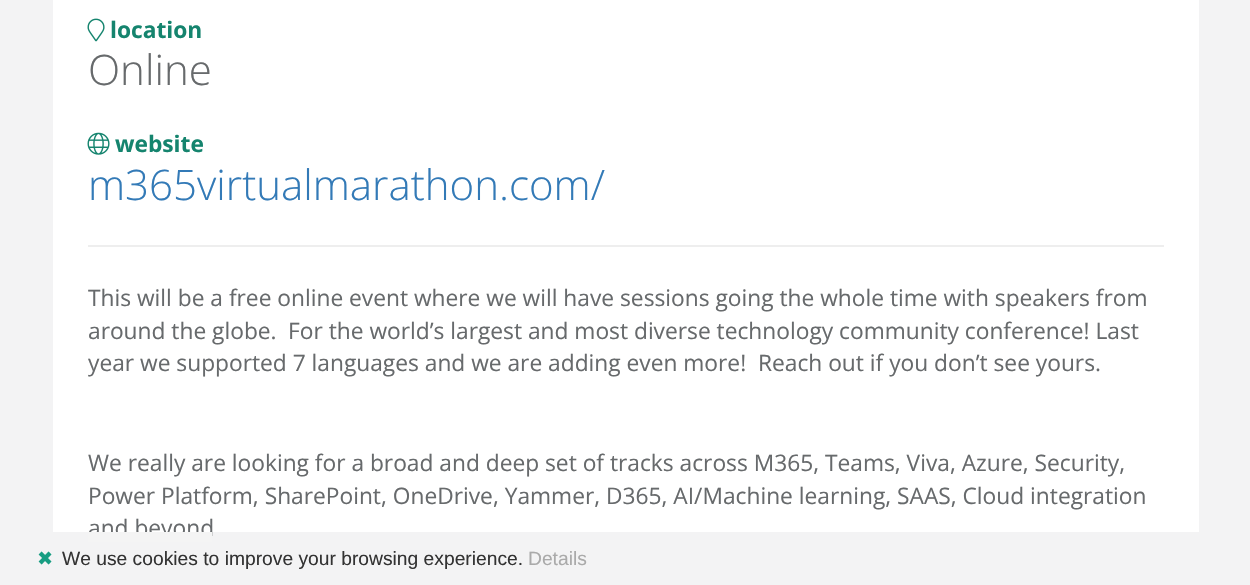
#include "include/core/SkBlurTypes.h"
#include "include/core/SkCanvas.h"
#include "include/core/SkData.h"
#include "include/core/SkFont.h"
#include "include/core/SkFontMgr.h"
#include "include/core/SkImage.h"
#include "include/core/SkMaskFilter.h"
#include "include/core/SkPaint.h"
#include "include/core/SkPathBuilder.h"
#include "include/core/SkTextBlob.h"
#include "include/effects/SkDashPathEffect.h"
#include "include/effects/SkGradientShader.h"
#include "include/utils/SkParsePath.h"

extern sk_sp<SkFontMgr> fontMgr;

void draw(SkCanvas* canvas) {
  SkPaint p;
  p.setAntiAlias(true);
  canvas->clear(SkColorSetRGB(243, 243, 244));
  p.setColor(SK_ColorWHITE);
  canvas->drawRect(SkRect::MakeLTRB(53, 0, 1199, 532), p);
  canvas->drawImageRect(SkImages::DeferredFromEncodedData(SkData::MakeFromFileName("images/1.png")), SkRect::MakeLTRB(87, 18, 105, 42), SkSamplingOptions());
  canvas->drawImageRect(SkImages::DeferredFromEncodedData(SkData::MakeFromFileName("images/2.png")), SkRect::MakeLTRB(87, 132, 110, 155), SkSamplingOptions());
  p.setColor(SkColorSetRGB(238, 238, 238));
  canvas->drawRect(SkRect::MakeLTRB(88, 245, 1164, 247), p);
  SkFont font1(fontMgr->matchFamilyStyle("Open Sans", SkFontStyle::Bold()), 22.75f);
  font1.setSubpixel(true);
  p.setColor(SkColorSetRGB(21, 132, 110));
  canvas->drawString("location", 110, 38, font1, p);
  SkFont font2(fontMgr->matchFamilyStyle("Open Sans", SkFontStyle(300, SkFontStyle::kNormal_Width, SkFontStyle::kUpright_Slant)), 42);
  font2.setSubpixel(true);
  p.setColor(SkColorSetRGB(103, 106, 108));
  canvas->drawString("Online", 88, 85, font2, p);
  p.setColor(SkColorSetRGB(21, 132, 110));
  canvas->drawString("website", 115, 152, font1, p);
  p.setColor(SkColorSetRGB(51, 122, 183));
  canvas->drawString("m365virtualmarathon.com/", 88, 200, font2, p);
  SkFont font3(fontMgr->matchFamilyStyle("Open Sans", SkFontStyle::Normal()), 22.75f);
  font3.setSubpixel(true);
  p.setColor(SkColorSetRGB(103, 106, 108));
  canvas->drawString("This will be a free online event where we will have sessions going the whole time with speakers from", 88, 306, font3, p);
  canvas->drawString("around the globe.", 88, 339, font3, p);
  canvas->drawString("For the world’s largest and most diverse technology community conference! Last", 288, 339, font3, p);
  canvas->drawString("year we supported 7 languages and we are adding even more!  Reach out if you don’t see yours.", 88, 371, font3, p);
  canvas->drawString("We really are looking for a broad and deep set of tracks across M365, Teams, Viva, Azure, Security,", 88, 471, font3, p);
  canvas->drawString("Power Platform, SharePoint, OneDrive, Yammer, D365, AI/Machine learning, SAAS, Cloud integration", 88, 504, font3, p);
  canvas->drawString("and beyond", 88, 536, font3, p);
  p.setColor(SkColorSetRGB(244, 244, 244));
  canvas->drawRect(SkRect::MakeLTRB(88, 532, 212, 542), p);
  SkFont font4(fontMgr->matchFamilyStyle("DejaVu Sans", SkFontStyle::Normal()), 19.25f);
  font4.setSubpixel(true);
  p.setColor(SkColorSetRGB(23, 157, 130));
  canvas->drawString("✖", 37, 565, font4, p);
  SkFont font5(fontMgr->matchFamilyStyle("Liberation Sans", SkFontStyle::Normal()), 19.25f);
  font5.setSubpixel(true);
  p.setColor(SkColorSetRGB(51, 51, 51));
  canvas->drawString("We use cookies to improve your browsing experience.", 62, 565, font5, p);
  p.setColor(SkColorSetRGB(170, 170, 170));
  canvas->drawString("Details", 528, 565, font5, p);
}
